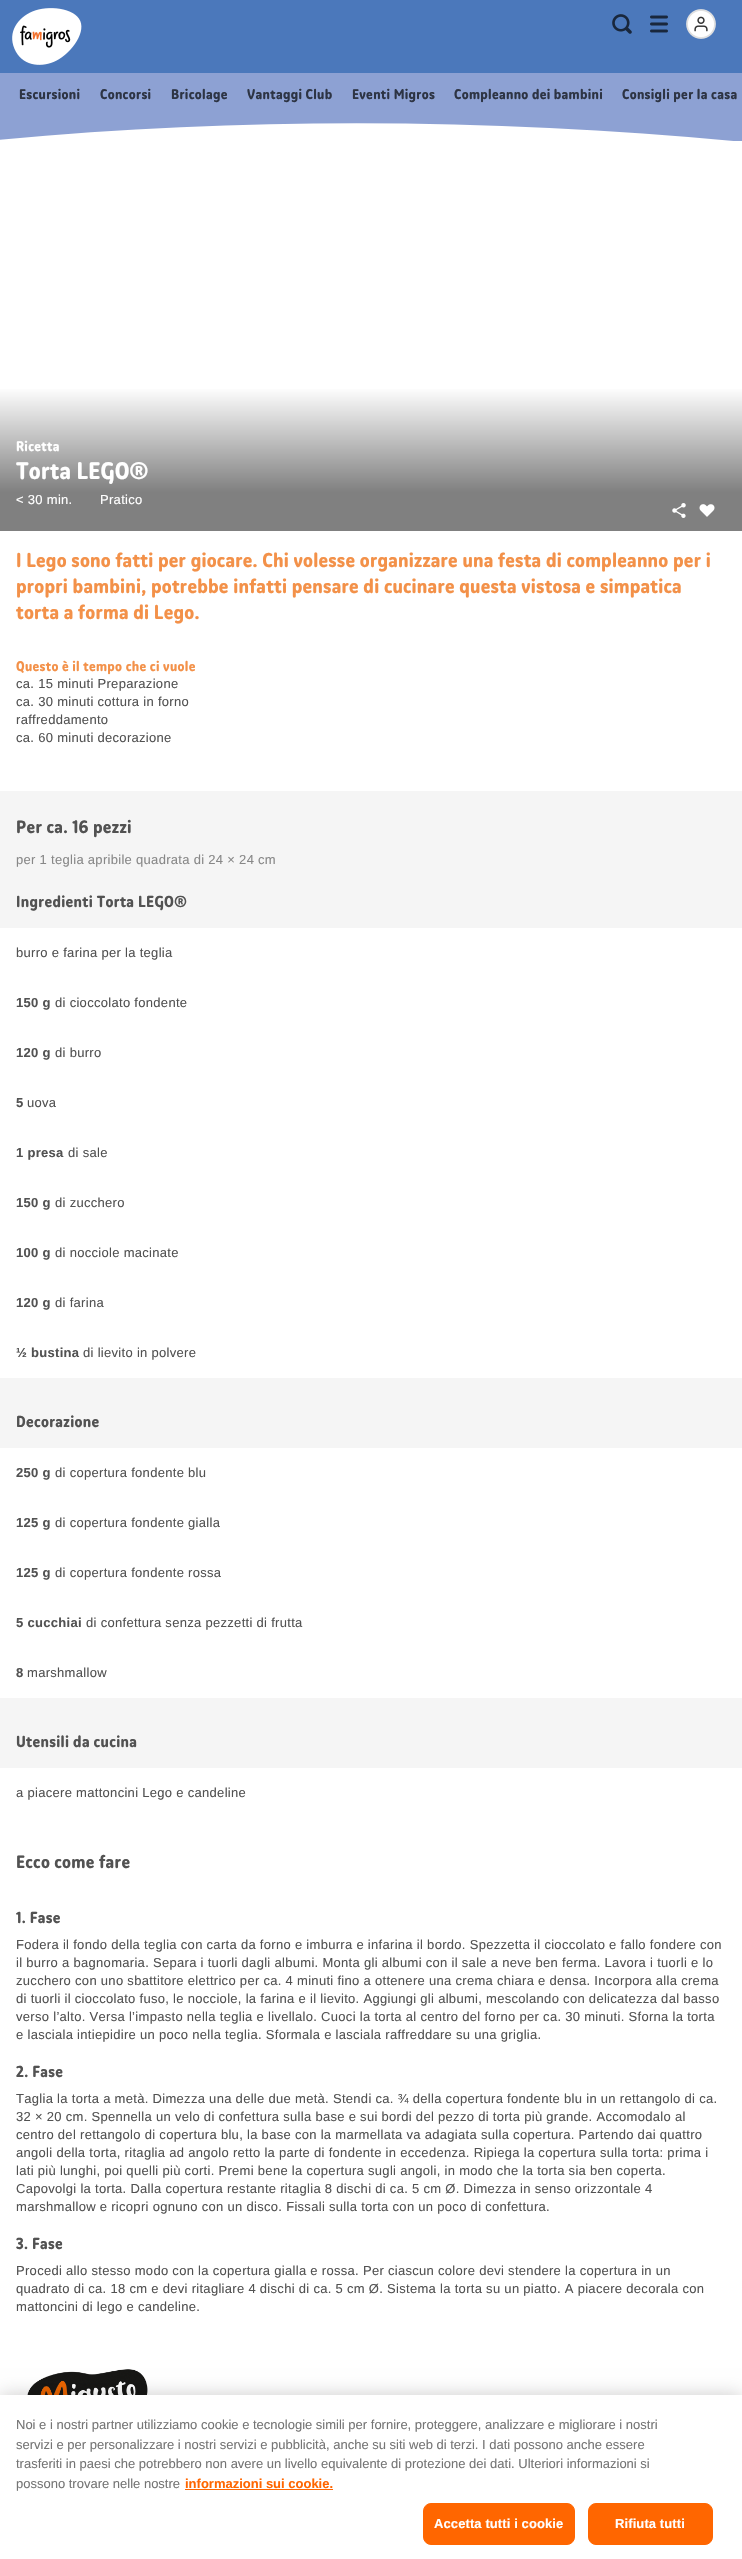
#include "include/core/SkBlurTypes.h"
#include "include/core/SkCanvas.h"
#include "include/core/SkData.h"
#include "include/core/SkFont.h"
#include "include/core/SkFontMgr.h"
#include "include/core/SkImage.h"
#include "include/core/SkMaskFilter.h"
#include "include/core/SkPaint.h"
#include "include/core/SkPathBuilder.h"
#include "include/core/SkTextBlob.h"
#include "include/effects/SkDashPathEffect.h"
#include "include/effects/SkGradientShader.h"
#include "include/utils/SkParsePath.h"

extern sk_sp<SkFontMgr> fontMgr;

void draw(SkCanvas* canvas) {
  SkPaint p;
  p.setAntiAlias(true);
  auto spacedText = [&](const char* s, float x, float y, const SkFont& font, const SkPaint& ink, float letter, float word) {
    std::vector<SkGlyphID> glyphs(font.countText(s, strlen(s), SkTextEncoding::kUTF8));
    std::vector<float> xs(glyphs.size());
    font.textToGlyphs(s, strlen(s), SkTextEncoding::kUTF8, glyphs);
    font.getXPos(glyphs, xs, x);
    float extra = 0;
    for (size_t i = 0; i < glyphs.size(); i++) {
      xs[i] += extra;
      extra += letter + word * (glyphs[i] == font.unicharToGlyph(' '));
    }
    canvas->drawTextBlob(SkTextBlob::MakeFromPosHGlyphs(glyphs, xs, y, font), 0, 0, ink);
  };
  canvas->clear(SK_ColorWHITE);
  p.setColor(SkColorSetRGB(75, 120, 187));
  canvas->drawRect(SkRect::MakeLTRB(0, 0, 742, 73), p);
  canvas->drawImageRect(SkImages::DeferredFromEncodedData(SkData::MakeFromFileName("images/1.png")), SkRect::MakeLTRB(12, 8, 82, 65), SkSamplingOptions());
  canvas->drawImageRect(SkImages::DeferredFromEncodedData(SkData::MakeFromFileName("images/2.png")), SkRect::MakeLTRB(612, 14, 632, 34), SkSamplingOptions());
  canvas->drawImageRect(SkImages::DeferredFromEncodedData(SkData::MakeFromFileName("images/3.png")), SkRect::MakeLTRB(650, 15, 668, 33), SkSamplingOptions());
  canvas->drawImageRect(SkImages::DeferredFromEncodedData(SkData::MakeFromFileName("images/4.png")), SkRect::MakeLTRB(686, 9, 716, 39), SkSamplingOptions());
  p.setColor(SkColorSetRGB(141, 161, 211));
  canvas->drawRect(SkRect::MakeLTRB(0, 73, 742, 101), p);
  canvas->save();
  canvas->clipRect(SkRect::MakeLTRB(0, 101, 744, 141));
  canvas->drawPath(SkPathBuilder().moveTo(-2, 99).lineTo(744, 99).lineTo(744, 142).cubicTo(516, 120, 262, 115, -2, 140).close().detach(), p);
  canvas->restore();
  {
    const SkColor colors[] = {SK_ColorWHITE, SkColorSetRGB(128, 128, 128)};
    const float stops[] = {0, 0.73f};
    const SkPoint ends[] = {{371, 387}, {371, 531}};
    p.setShader(SkGradientShader::MakeLinear(ends, colors, stops, 2, SkTileMode::kClamp));
    p.setAlpha(255);
  }
  canvas->drawRect(SkRect::MakeLTRB(0, 389, 742, 531), p);
  canvas->drawImageRect(SkImages::DeferredFromEncodedData(SkData::MakeFromFileName("images/5.png")), SkRect::MakeLTRB(672, 503, 686, 518), SkSamplingOptions());
  canvas->drawImageRect(SkImages::DeferredFromEncodedData(SkData::MakeFromFileName("images/6.png")), SkRect::MakeLTRB(699, 504, 715, 517), SkSamplingOptions());
  p.setShader(nullptr);
  p.setColor(SkColorSetRGB(245, 245, 245));
  canvas->drawRect(SkRect::MakeLTRB(0, 791, 742, 928), p);
  canvas->drawRect(SkRect::MakeLTRB(0, 1378, 742, 1448), p);
  canvas->drawRect(SkRect::MakeLTRB(0, 1698, 742, 1768), p);
  canvas->drawImageRect(SkImages::DeferredFromEncodedData(SkData::MakeFromFileName("images/7.png")), SkRect::MakeLTRB(26, 2369, 148, 2395), SkSamplingOptions());
  p.setColor(SkColorSetARGB(51, 0, 0, 0));
  p.setMaskFilter(SkMaskFilter::MakeBlur(kNormal_SkBlurStyle, 9));
  canvas->drawRect(SkRect::MakeLTRB(0, 2395, 742, 2559), p);
  p.setMaskFilter(nullptr);
  p.setColor(SK_ColorWHITE);
  canvas->drawRect(SkRect::MakeLTRB(0, 2395, 742, 2559), p);
  p.setColor(SkColorSetRGB(255, 102, 0));
  canvas->drawRect(SkRect::MakeLTRB(185, 2489, 333, 2490), p);
  canvas->drawRoundRect(SkRect::MakeLTRB(423.5f, 2503.5f, 574.5f, 2544.5f), 7.5f, 7.5f, p);
  p.setStyle(SkPaint::kStroke_Style);
  p.setStrokeWidth(1);
  canvas->drawRoundRect(SkRect::MakeLTRB(423.5f, 2503.5f, 574.5f, 2544.5f), 7.5f, 7.5f, p);
  p.setStyle(SkPaint::kFill_Style);
  canvas->drawRoundRect(SkRect::MakeLTRB(588.5f, 2503.5f, 712.5f, 2544.5f), 7.5f, 7.5f, p);
  p.setStyle(SkPaint::kStroke_Style);
  canvas->drawRoundRect(SkRect::MakeLTRB(588.5f, 2503.5f, 712.5f, 2544.5f), 7.5f, 7.5f, p);
  SkFont font1(fontMgr->matchFamilyStyle("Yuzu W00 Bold", SkFontStyle::Bold()), 14);
  font1.setSubpixel(true);
  p.setStyle(SkPaint::kFill_Style);
  p.setColor(SkColorSetRGB(45, 52, 68));
  spacedText("Escursioni", 19, 99, font1, p, 0.3f, 0);
  spacedText("Concorsi", 100, 99, font1, p, 0.3f, 0);
  spacedText("Bricolage", 171, 99, font1, p, 0.3f, 0);
  spacedText("Vantaggi Club", 247, 99, font1, p, 0.3f, 0);
  spacedText("Eventi Migros", 352, 99, font1, p, 0.3f, 0);
  spacedText("Compleanno dei bambini", 454, 99, font1, p, 0.3f, 0);
  spacedText("Consigli per la casa", 622, 99, font1, p, 0.3f, 0);
  p.setColor(SK_ColorWHITE);
  spacedText("Ricetta", 16, 451, font1, p, 0.3f, 0);
  SkFont font2(fontMgr->matchFamilyStyle("Yuzu W00 Bold", SkFontStyle::Bold()), 24);
  font2.setSubpixel(true);
  spacedText("Torta LEGO®", 16, 479, font2, p, 0.2f, 0);
  SkFont font3(fontMgr->matchFamilyStyle("Liberation Sans", SkFontStyle::Normal()), 13);
  font3.setSubpixel(true);
  spacedText("< 30 min.", 16, 504, font3, p, 0.3f, 0);
  spacedText("Pratico", 100, 504, font3, p, 0.3f, 0);
  SkFont font4(fontMgr->matchFamilyStyle("Yuzu W00 Bold", SkFontStyle::Bold()), 20);
  font4.setSubpixel(true);
  p.setColor(SkColorSetRGB(243, 145, 73));
  spacedText("I Lego sono fatti per giocare. Chi volesse organizzare una festa di compleanno per i", 16, 567, font4, p, 0.2f, 0);
  spacedText("propri bambini, potrebbe infatti pensare di cucinare questa vistosa e simpatica", 16, 593, font4, p, 0.2f, 0);
  spacedText("torta a forma di Lego.", 16, 619, font4, p, 0.2f, 0);
  spacedText("Questo è il tempo che ci vuole", 16, 671, font1, p, 0.3f, 0);
  p.setColor(SkColorSetRGB(82, 82, 82));
  spacedText("ca. 15 minuti Preparazione", 16, 688, font3, p, 0.3f, 0);
  spacedText("ca. 30 minuti cottura in forno", 16, 706, font3, p, 0.3f, 0);
  spacedText("raffreddamento", 16, 724, font3, p, 0.3f, 0);
  spacedText("ca. 60 minuti decorazione", 16, 742, font3, p, 0.3f, 0);
  SkFont font5(fontMgr->matchFamilyStyle("Yuzu W00 Bold", SkFontStyle::Bold()), 18);
  font5.setSubpixel(true);
  spacedText("Per ca. 16 pezzi", 16, 833, font5, p, 0.3f, 0);
  p.setColor(SkColorSetRGB(136, 136, 136));
  spacedText("per 1 teglia apribile quadrata di 24 × 24 cm", 16, 864, font3, p, 0.3f, 0);
  SkFont font6(fontMgr->matchFamilyStyle("Yuzu W00 Bold", SkFontStyle::Bold()), 16);
  font6.setSubpixel(true);
  p.setColor(SkColorSetRGB(82, 82, 82));
  spacedText("Ingredienti Torta LEGO®", 16, 907, font6, p, 0.3f, 0);
  spacedText("burro e farina per la teglia", 16, 957, font3, p, 0.3f, 0);
  SkFont font7(fontMgr->matchFamilyStyle("Liberation Sans", SkFontStyle::Bold()), 13);
  font7.setSubpixel(true);
  spacedText("150 g", 16, 1007, font7, p, 0.3f, 0);
  spacedText("di cioccolato fondente", 55, 1007, font3, p, 0.3f, 0);
  spacedText("120 g", 16, 1057, font7, p, 0.3f, 0);
  spacedText("di burro", 55, 1057, font3, p, 0.3f, 0);
  spacedText("5", 16, 1107, font7, p, 0.3f, 0);
  spacedText("uova", 27, 1107, font3, p, 0.3f, 0);
  spacedText("1 presa", 16, 1157, font7, p, 0.3f, 0);
  spacedText("di sale", 68, 1157, font3, p, 0.3f, 0);
  spacedText("150 g", 16, 1207, font7, p, 0.3f, 0);
  spacedText("di zucchero", 55, 1207, font3, p, 0.3f, 0);
  spacedText("100 g", 16, 1257, font7, p, 0.3f, 0);
  spacedText("di nocciole macinate", 55, 1257, font3, p, 0.3f, 0);
  spacedText("120 g", 16, 1307, font7, p, 0.3f, 0);
  spacedText("di farina", 55, 1307, font3, p, 0.3f, 0);
  spacedText("½ bustina", 16, 1357, font7, p, 0.3f, 0);
  spacedText("di lievito in polvere", 83, 1357, font3, p, 0.3f, 0);
  spacedText("Decorazione", 16, 1427, font6, p, 0.3f, 0);
  spacedText("250 g", 16, 1477, font7, p, 0.3f, 0);
  spacedText("di copertura fondente blu", 55, 1477, font3, p, 0.3f, 0);
  spacedText("125 g", 16, 1527, font7, p, 0.3f, 0);
  spacedText("di copertura fondente gialla", 55, 1527, font3, p, 0.3f, 0);
  spacedText("125 g", 16, 1577, font7, p, 0.3f, 0);
  spacedText("di copertura fondente rossa", 55, 1577, font3, p, 0.3f, 0);
  spacedText("5 cucchiai", 16, 1627, font7, p, 0.3f, 0);
  spacedText("di confettura senza pezzetti di frutta", 86, 1627, font3, p, 0.3f, 0);
  spacedText("8", 16, 1677, font7, p, 0.3f, 0);
  spacedText("marshmallow", 27, 1677, font3, p, 0.3f, 0);
  spacedText("Utensili da cucina", 16, 1747, font6, p, 0.3f, 0);
  spacedText("a piacere mattoncini Lego e candeline", 16, 1797, font3, p, 0.3f, 0);
  spacedText("Ecco come fare", 16, 1868, font5, p, 0.3f, 0);
  spacedText("1. Fase", 16, 1923, font6, p, 0.3f, 0);
  spacedText("Fodera il fondo della teglia con carta da forno e imburra e infarina il bordo. Spezzetta il cioccolato e fallo fondere con", 16, 1949, font3, p, 0.3f, 0);
  spacedText("il burro a bagnomaria. Separa i tuorli dagli albumi. Monta gli albumi con il sale a neve ben ferma. Lavora i tuorli e lo", 16, 1967, font3, p, 0.3f, 0);
  spacedText("zucchero con uno sbattitore elettrico per ca. 4 minuti fino a ottenere una crema chiara e densa. Incorpora alla crema", 16, 1985, font3, p, 0.3f, 0);
  spacedText("di tuorli il cioccolato fuso, le nocciole, la farina e il lievito. Aggiungi gli albumi, mescolando con delicatezza dal basso", 16, 2003, font3, p, 0.3f, 0);
  spacedText("verso l’alto. Versa l’impasto nella teglia e livellalo. Cuoci la torta al centro del forno per ca. 30 minuti. Sforna la torta", 16, 2021, font3, p, 0.3f, 0);
  spacedText("e lasciala intiepidire un poco nella teglia. Sformala e lasciala raffreddare su una griglia.", 16, 2039, font3, p, 0.3f, 0);
  spacedText("2. Fase", 16, 2077, font6, p, 0.3f, 0);
  spacedText("Taglia la torta a metà. Dimezza una delle due metà. Stendi ca. ¾ della copertura fondente blu in un rettangolo di ca.", 16, 2103, font3, p, 0.3f, 0);
  spacedText("32 × 20 cm. Spennella un velo di confettura sulla base e sui bordi del pezzo di torta più grande. Accomodalo al", 16, 2121, font3, p, 0.3f, 0);
  spacedText("centro del rettangolo di copertura blu, la base con la marmellata va adagiata sulla copertura. Partendo dai quattro", 16, 2139, font3, p, 0.3f, 0);
  spacedText("angoli della torta, ritaglia ad angolo retto la parte di fondente in eccedenza. Ripiega la copertura sulla torta: prima i", 16, 2157, font3, p, 0.3f, 0);
  spacedText("lati più lunghi, poi quelli più corti. Premi bene la copertura sugli angoli, in modo che la torta sia ben coperta.", 16, 2175, font3, p, 0.3f, 0);
  spacedText("Capovolgi la torta. Dalla copertura restante ritaglia 8 dischi di ca. 5 cm Ø. Dimezza in senso orizzontale 4", 16, 2193, font3, p, 0.3f, 0);
  spacedText("marshmallow e ricopri ognuno con un disco. Fissali sulla torta con un poco di confettura.", 16, 2211, font3, p, 0.3f, 0);
  spacedText("3. Fase", 16, 2249, font6, p, 0.3f, 0);
  spacedText("Procedi allo stesso modo con la copertura gialla e rossa. Per ciascun colore devi stendere la copertura in un", 16, 2275, font3, p, 0.3f, 0);
  spacedText("quadrato di ca. 18 cm e devi ritagliare 4 dischi di ca. 5 cm Ø. Sistema la torta su un piatto. A piacere decorala con", 16, 2293, font3, p, 0.3f, 0);
  spacedText("mattoncini di lego e candeline.", 16, 2311, font3, p, 0.3f, 0);
  p.setColor(SkColorSetRGB(117, 117, 117));
  canvas->drawString("Noi e i nostri partner utilizziamo cookie e tecnologie simili per fornire, proteggere, analizzare e migliorare i nostri", 16, 2429, font3, p);
  canvas->drawString("servizi e per personalizzare i nostri servizi e pubblicità, anche su siti web di terzi. I dati possono anche essere", 16, 2449, font3, p);
  canvas->drawString("trasferiti in paesi che potrebbero non avere un livello equivalente di protezione dei dati. Ulteriori informazioni si", 16, 2468, font3, p);
  canvas->drawString("possono trovare nelle nostre", 16, 2488, font3, p);
  p.setColor(SkColorSetRGB(255, 102, 0));
  canvas->drawString("informazioni sui cookie.", 185, 2488, font7, p);
  p.setColor(SK_ColorWHITE);
  spacedText("Accetta tutti i cookie", 434, 2528, font7, p, 0.1f, 0);
  spacedText("Rifiuta tutti", 615, 2528, font7, p, 0.1f, 0);
}
